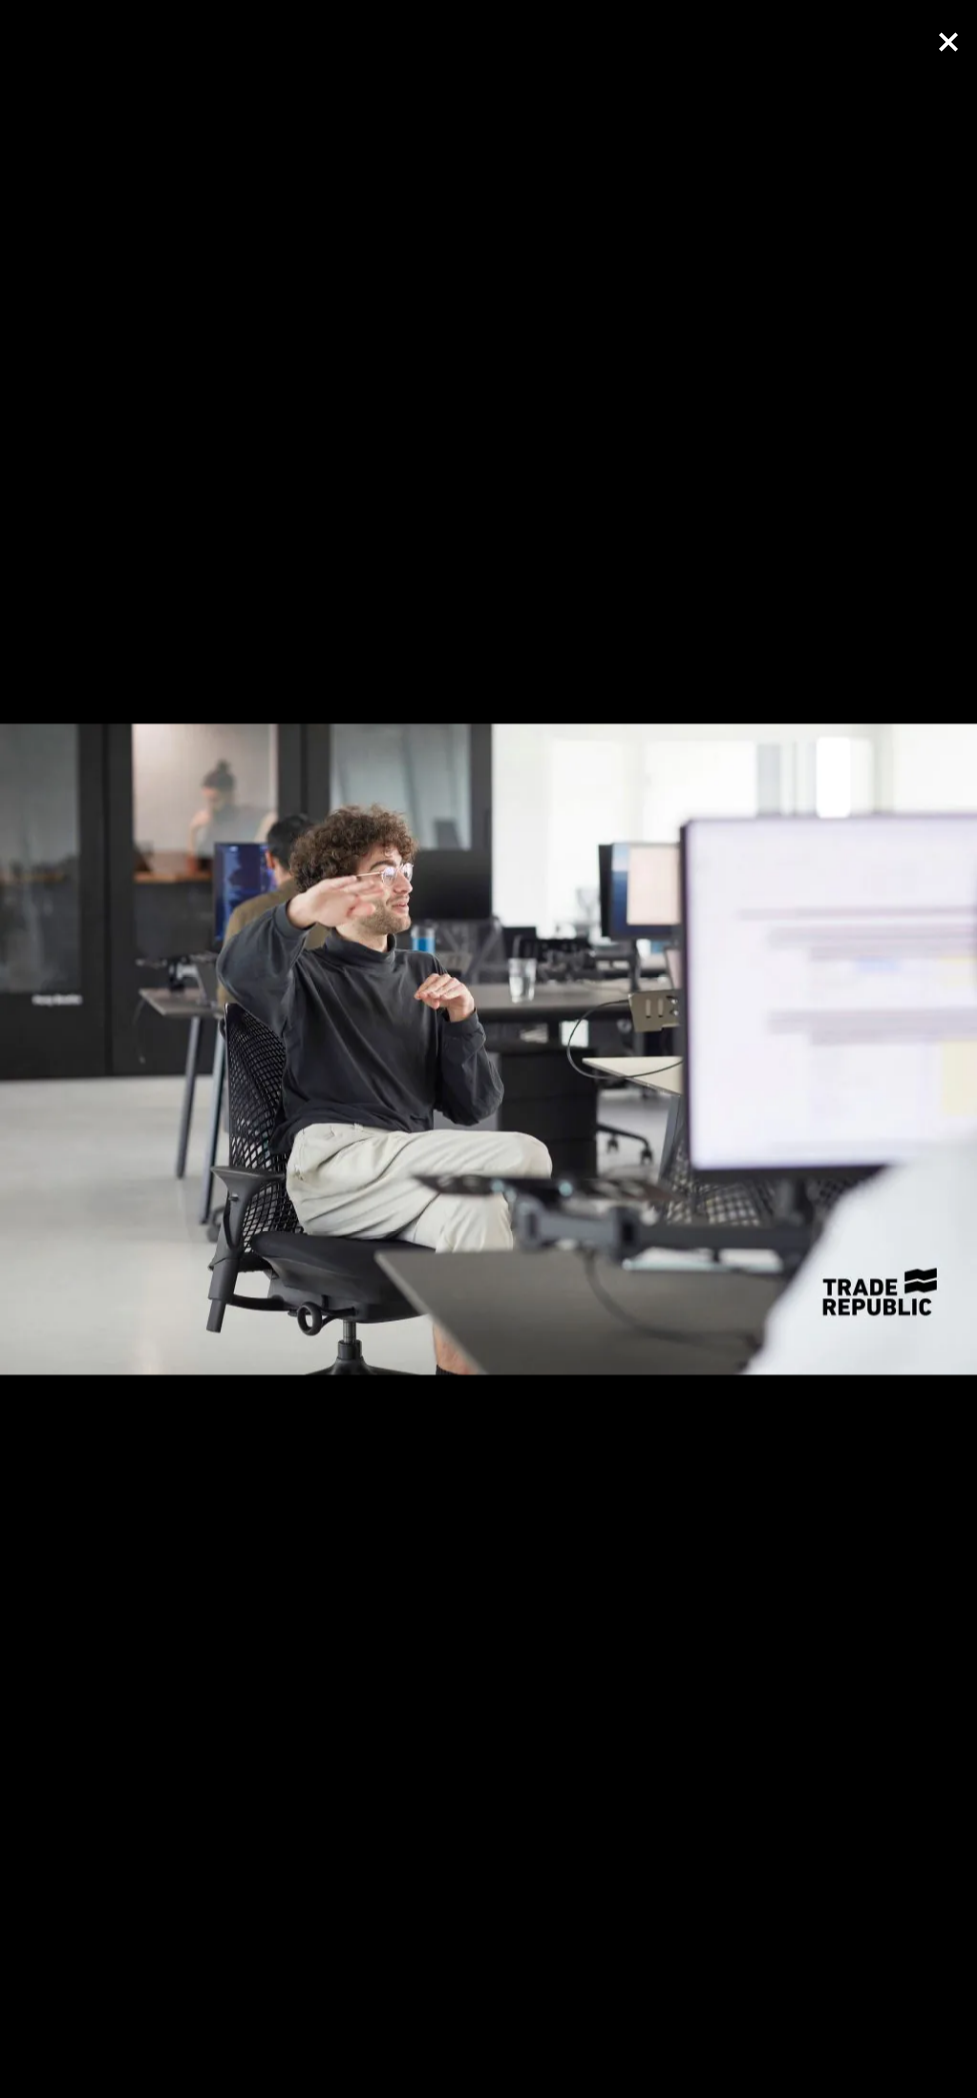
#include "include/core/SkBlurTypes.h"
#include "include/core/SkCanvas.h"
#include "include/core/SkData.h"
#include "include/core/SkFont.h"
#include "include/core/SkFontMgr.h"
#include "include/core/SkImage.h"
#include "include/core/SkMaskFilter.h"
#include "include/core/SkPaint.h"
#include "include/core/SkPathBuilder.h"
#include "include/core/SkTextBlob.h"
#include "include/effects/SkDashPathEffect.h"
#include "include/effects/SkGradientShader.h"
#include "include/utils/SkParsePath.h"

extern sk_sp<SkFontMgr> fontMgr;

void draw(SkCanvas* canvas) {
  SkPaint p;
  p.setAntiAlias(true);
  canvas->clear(SK_ColorBLACK);
  canvas->drawImageRect(SkImages::DeferredFromEncodedData(SkData::MakeFromFileName("images/1.png")), SkRect::MakeLTRB(939, 32, 958, 52), SkSamplingOptions());
  canvas->drawImageRect(SkImages::DeferredFromEncodedData(SkData::MakeFromFileName("images/2.png")), SkRect::MakeLTRB(0, 723, 977, 1376), SkSamplingOptions());
}
